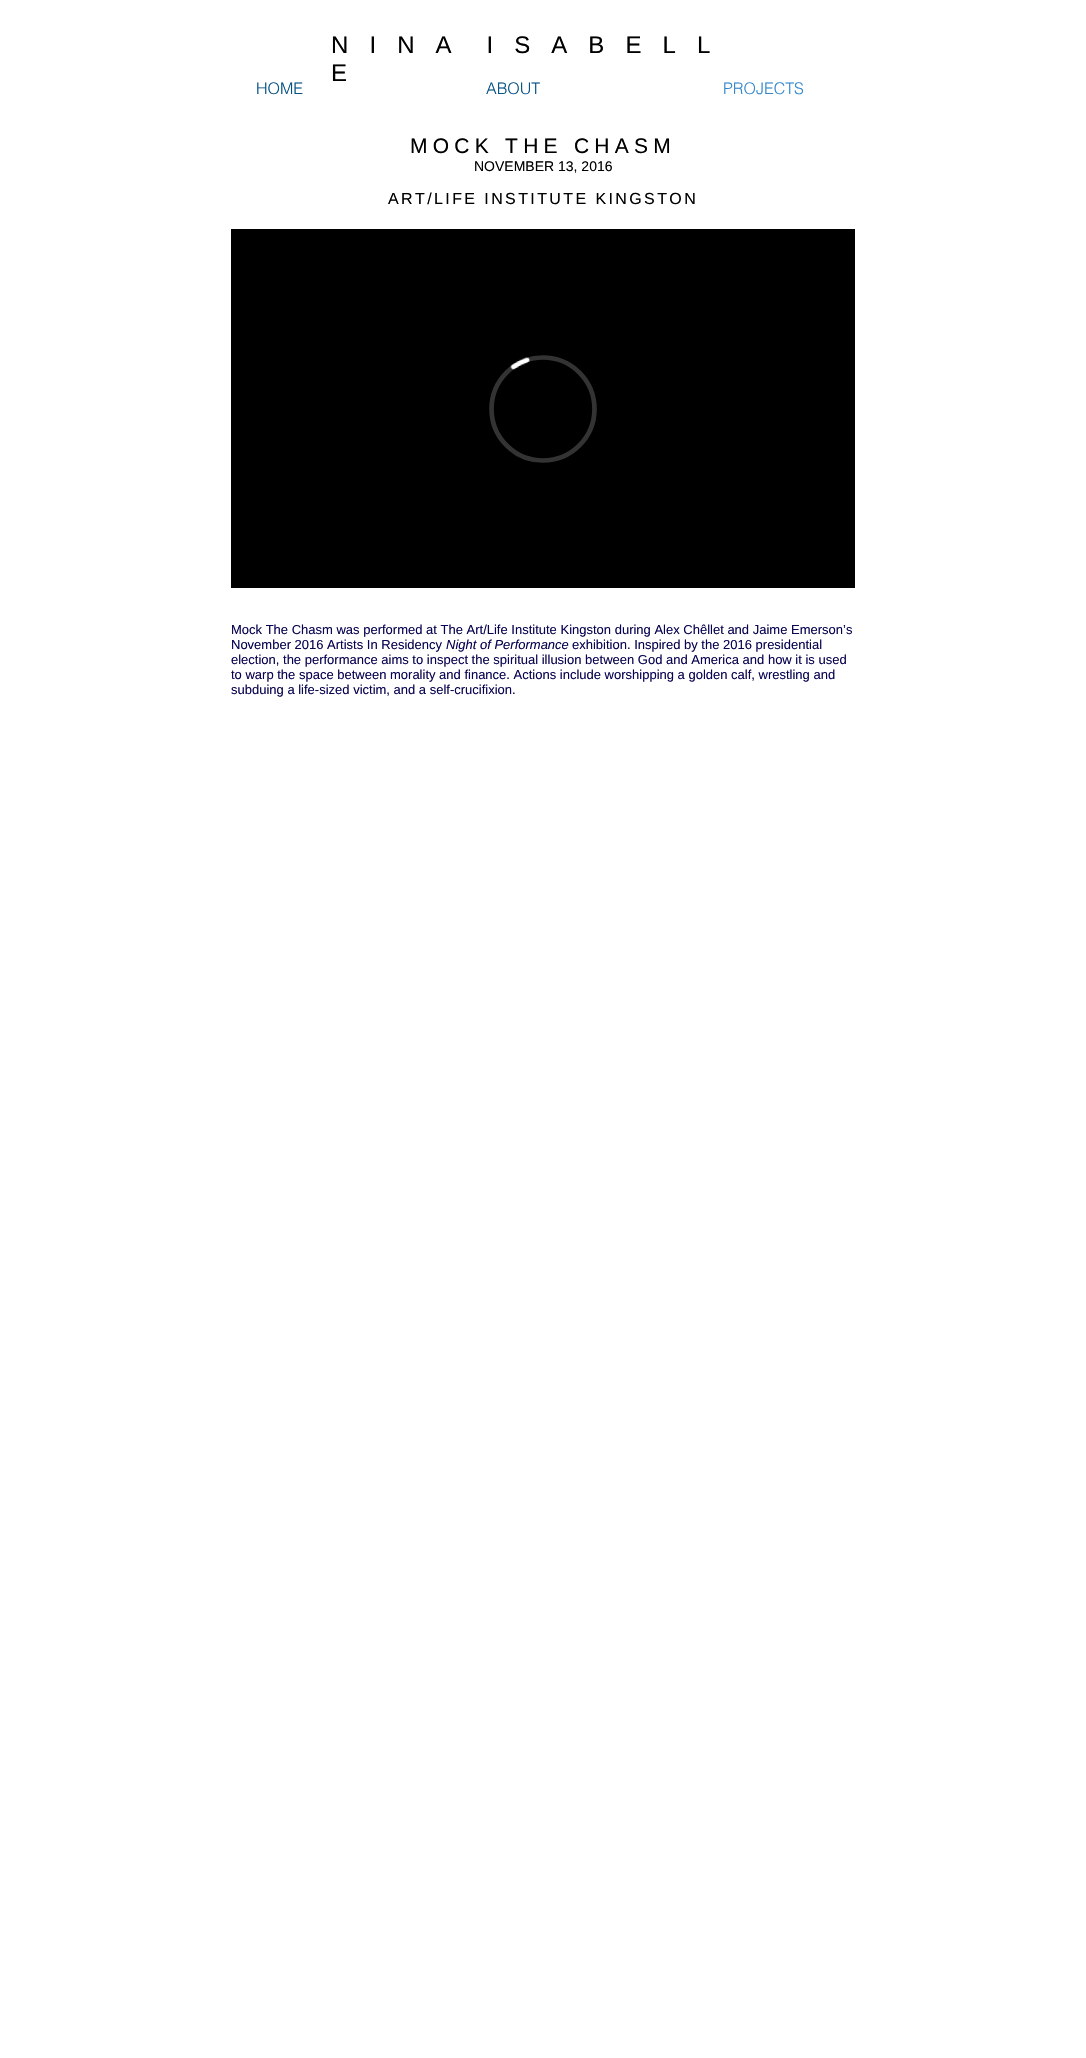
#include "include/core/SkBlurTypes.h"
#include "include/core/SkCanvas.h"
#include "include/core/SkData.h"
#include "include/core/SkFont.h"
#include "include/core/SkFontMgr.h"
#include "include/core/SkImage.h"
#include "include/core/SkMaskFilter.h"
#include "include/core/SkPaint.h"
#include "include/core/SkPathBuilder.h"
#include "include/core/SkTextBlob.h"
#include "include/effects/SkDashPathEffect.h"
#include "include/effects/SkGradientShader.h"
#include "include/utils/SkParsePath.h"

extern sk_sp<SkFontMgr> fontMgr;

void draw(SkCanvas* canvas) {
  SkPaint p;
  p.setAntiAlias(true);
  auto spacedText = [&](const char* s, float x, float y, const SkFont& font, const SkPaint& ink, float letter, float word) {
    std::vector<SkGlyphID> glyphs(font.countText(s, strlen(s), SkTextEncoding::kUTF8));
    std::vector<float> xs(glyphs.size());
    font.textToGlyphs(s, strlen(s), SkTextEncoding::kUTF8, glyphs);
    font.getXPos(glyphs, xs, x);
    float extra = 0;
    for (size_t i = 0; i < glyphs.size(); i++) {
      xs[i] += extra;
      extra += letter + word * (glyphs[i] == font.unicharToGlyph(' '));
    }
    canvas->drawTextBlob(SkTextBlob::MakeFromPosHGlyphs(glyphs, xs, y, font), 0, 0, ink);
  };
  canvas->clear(SK_ColorWHITE);
  canvas->drawImageRect(SkImages::DeferredFromEncodedData(SkData::MakeFromFileName("images/1.png")), SkRect::MakeLTRB(231, 229, 855, 588), SkSamplingOptions());
  SkFont font1(fontMgr->matchFamilyStyle("Liberation Sans", SkFontStyle::Normal()), 24);
  font1.setSubpixel(true);
  p.setColor(SK_ColorBLACK);
  spacedText("N I N A  I S A B E L L", 331, 53, font1, p, 7.2f, 0);
  spacedText("E", 331, 81, font1, p, 7.2f, 0);
  SkFont font2(fontMgr->matchFamilyStyle("helvetica", SkFontStyle(300, SkFontStyle::kNormal_Width, SkFontStyle::kUpright_Slant)), 16);
  font2.setSubpixel(true);
  p.setColor(SkColorSetRGB(4, 81, 132));
  canvas->drawString("HOME", 256, 94, font2, p);
  canvas->drawString("ABOUT", 486, 94, font2, p);
  p.setColor(SkColorSetRGB(53, 136, 204));
  canvas->drawString("PROJECTS", 723, 94, font2, p);
  SkFont font3(fontMgr->matchFamilyStyle("Liberation Sans", SkFontStyle::Normal()), 21);
  font3.setSubpixel(true);
  p.setColor(SK_ColorBLACK);
  spacedText("MOCK THE CHASM", 410, 153, font3, p, 5.25f, 0);
  SkFont font4(fontMgr->matchFamilyStyle("Liberation Sans", SkFontStyle::Normal()), 14);
  font4.setSubpixel(true);
  canvas->drawString("NOVEMBER 13, 2016", 474, 171, font4, p);
  SkFont font5(fontMgr->matchFamilyStyle("Liberation Sans", SkFontStyle::Normal()), 16);
  font5.setSubpixel(true);
  spacedText("ART/LIFE INSTITUTE KINGSTON", 388, 204, font5, p, 2.4f, 0);
  SkFont font6(fontMgr->matchFamilyStyle("Liberation Sans", SkFontStyle::Normal()), 13);
  font6.setSubpixel(true);
  p.setColor(SkColorSetRGB(8, 4, 81));
  canvas->drawString("Mock The Chasm was performed at The Art/Life Institute Kingston during Alex Chêllet and Jaime Emerson’s", 231, 634, font6, p);
  canvas->drawString("November 2016 Artists In Residency", 231, 649, font6, p);
  SkFont font7(fontMgr->matchFamilyStyle("Liberation Sans", SkFontStyle::Italic()), 13);
  font7.setSubpixel(true);
  canvas->drawString("Night of Performance", 446, 649, font7, p);
  canvas->drawString("exhibition. Inspired by the 2016 presidential", 572, 649, font6, p);
  canvas->drawString("election, the performance aims to inspect the spiritual illusion between God and America and how it is used", 231, 664, font6, p);
  canvas->drawString("to warp the space between morality and finance. Actions include worshipping a golden calf, wrestling and", 231, 679, font6, p);
  canvas->drawString("subduing a life-sized victim, and a self-crucifixion.", 231, 694, font6, p);
}
